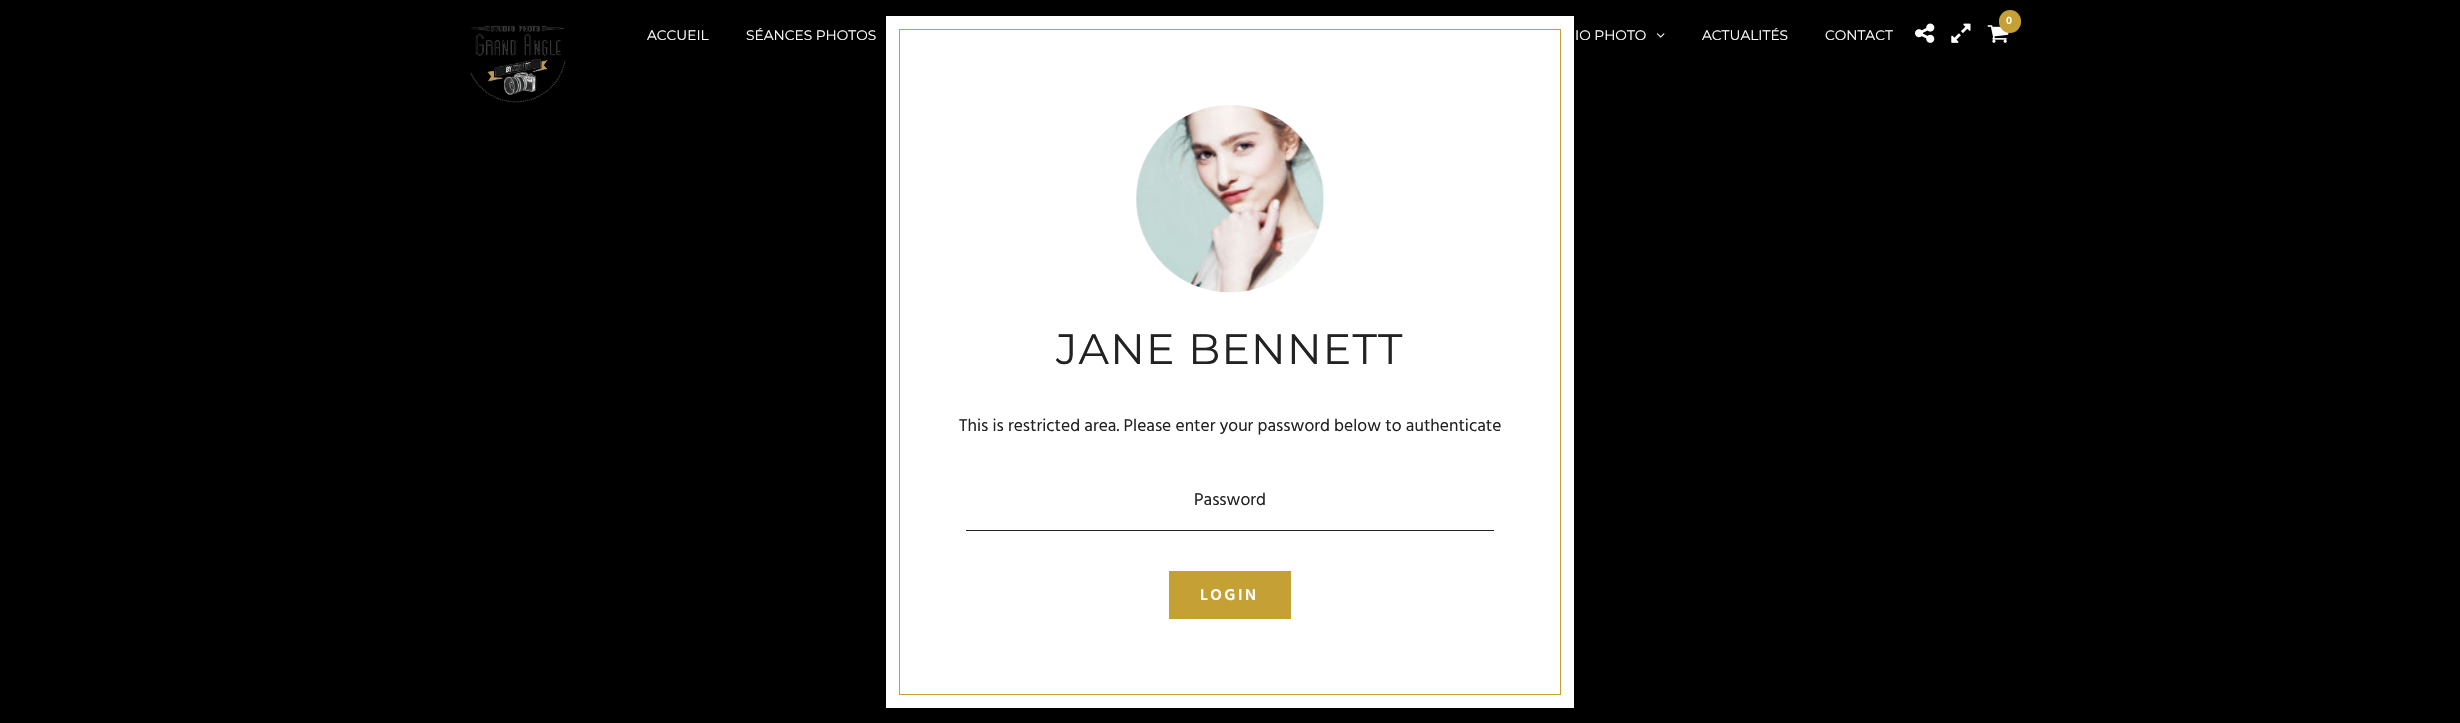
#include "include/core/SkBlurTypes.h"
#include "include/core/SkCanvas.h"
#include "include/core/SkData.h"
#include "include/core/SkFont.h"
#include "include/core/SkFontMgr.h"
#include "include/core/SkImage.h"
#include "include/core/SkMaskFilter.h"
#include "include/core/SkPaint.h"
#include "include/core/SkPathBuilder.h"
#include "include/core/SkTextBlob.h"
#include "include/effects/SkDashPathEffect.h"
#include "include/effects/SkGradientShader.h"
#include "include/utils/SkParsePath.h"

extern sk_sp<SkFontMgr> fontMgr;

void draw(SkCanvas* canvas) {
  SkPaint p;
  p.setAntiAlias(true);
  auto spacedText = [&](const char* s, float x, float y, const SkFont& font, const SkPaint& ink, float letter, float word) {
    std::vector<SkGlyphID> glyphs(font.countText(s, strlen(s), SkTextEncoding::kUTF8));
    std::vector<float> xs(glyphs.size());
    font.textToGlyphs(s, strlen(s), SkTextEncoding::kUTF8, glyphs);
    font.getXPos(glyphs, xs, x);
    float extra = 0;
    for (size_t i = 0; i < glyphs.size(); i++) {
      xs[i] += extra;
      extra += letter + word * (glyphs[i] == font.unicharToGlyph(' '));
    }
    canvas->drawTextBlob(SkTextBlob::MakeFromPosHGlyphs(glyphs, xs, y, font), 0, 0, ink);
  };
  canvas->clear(SK_ColorBLACK);
  canvas->drawImageRect(SkImages::DeferredFromEncodedData(SkData::MakeFromFileName("images/1.png")), SkRect::MakeLTRB(470, 25, 566, 103), SkSamplingOptions());
  canvas->drawImageRect(SkImages::DeferredFromEncodedData(SkData::MakeFromFileName("images/2.png")), SkRect::MakeLTRB(1987, 25, 2009, 43), SkSamplingOptions());
  p.setColor(SkColorSetRGB(197, 161, 53));
  canvas->drawRoundRect(SkRect::MakeLTRB(1999, 10, 2021, 33), 11, 11, p);
  canvas->drawImageRect(SkImages::DeferredFromEncodedData(SkData::MakeFromFileName("images/3.png")), SkRect::MakeLTRB(1915, 23, 1935, 43), SkSamplingOptions());
  canvas->drawImageRect(SkImages::DeferredFromEncodedData(SkData::MakeFromFileName("images/4.png")), SkRect::MakeLTRB(1951, 23, 1971, 43), SkSamplingOptions());
  canvas->drawImageRect(SkImages::DeferredFromEncodedData(SkData::MakeFromFileName("images/5.png")), SkRect::MakeLTRB(1656, 33, 1665, 38), SkSamplingOptions());
  p.setColor(SK_ColorWHITE);
  canvas->drawRect(SkRect::MakeLTRB(886, 16, 1574, 708), p);
  p.setStyle(SkPaint::kStroke_Style);
  p.setStrokeWidth(1);
  p.setColor(SkColorSetRGB(197, 161, 53));
  canvas->drawRect(SkRect::MakeLTRB(899.5f, 29.5f, 1560.5f, 694.5f), p);
  canvas->drawImageRect(SkImages::DeferredFromEncodedData(SkData::MakeFromFileName("images/6.png")), SkRect::MakeLTRB(1136, 105, 1324, 293), SkSamplingOptions());
  p.setStyle(SkPaint::kFill_Style);
  p.setColor(SkColorSetRGB(34, 34, 34));
  canvas->drawRect(SkRect::MakeLTRB(966, 530, 1494, 531), p);
  p.setColor(SkColorSetRGB(197, 161, 53));
  canvas->drawRect(SkRect::MakeLTRB(1169, 571, 1291, 619), p);
  SkFont font1(fontMgr->matchFamilyStyle("Hind", SkFontStyle(600, SkFontStyle::kNormal_Width, SkFontStyle::kUpright_Slant)), 11);
  font1.setSubpixel(true);
  p.setColor(SK_ColorWHITE);
  canvas->drawString("0", 2006, 24, font1, p);
  SkFont font2(fontMgr->matchFamilyStyle("Montserrat", SkFontStyle::Normal()), 13.75f);
  font2.setSubpixel(true);
  canvas->drawString("ACCUEIL", 647, 40, font2, p);
  canvas->drawString("SÉANCES PHOTOS", 746, 40, font2, p);
  canvas->drawString("IO PHOTO", 1575, 40, font2, p);
  canvas->drawString("ACTUALITÉS", 1702, 40, font2, p);
  canvas->drawString("CONTACT", 1825, 40, font2, p);
  SkFont font3(fontMgr->matchFamilyStyle("Montserrat", SkFontStyle::Normal()), 42.5f);
  font3.setSubpixel(true);
  p.setColor(SkColorSetRGB(34, 34, 34));
  spacedText("JANE BENNETT", 1056, 364, font3, p, 1.25f, 0);
  SkFont font4(fontMgr->matchFamilyStyle("Hind", SkFontStyle::Normal()), 17.5f);
  font4.setSubpixel(true);
  canvas->drawString("This is restricted area. Please enter your password below to authenticate", 959, 431, font4, p);
  canvas->drawString("Password", 1194, 505, font4, p);
  SkFont font5(fontMgr->matchFamilyStyle("Hind", SkFontStyle(600, SkFontStyle::kNormal_Width, SkFontStyle::kUpright_Slant)), 16);
  font5.setSubpixel(true);
  p.setColor(SK_ColorWHITE);
  spacedText("LOGIN", 1200, 600, font5, p, 2.5f, 0);
}
